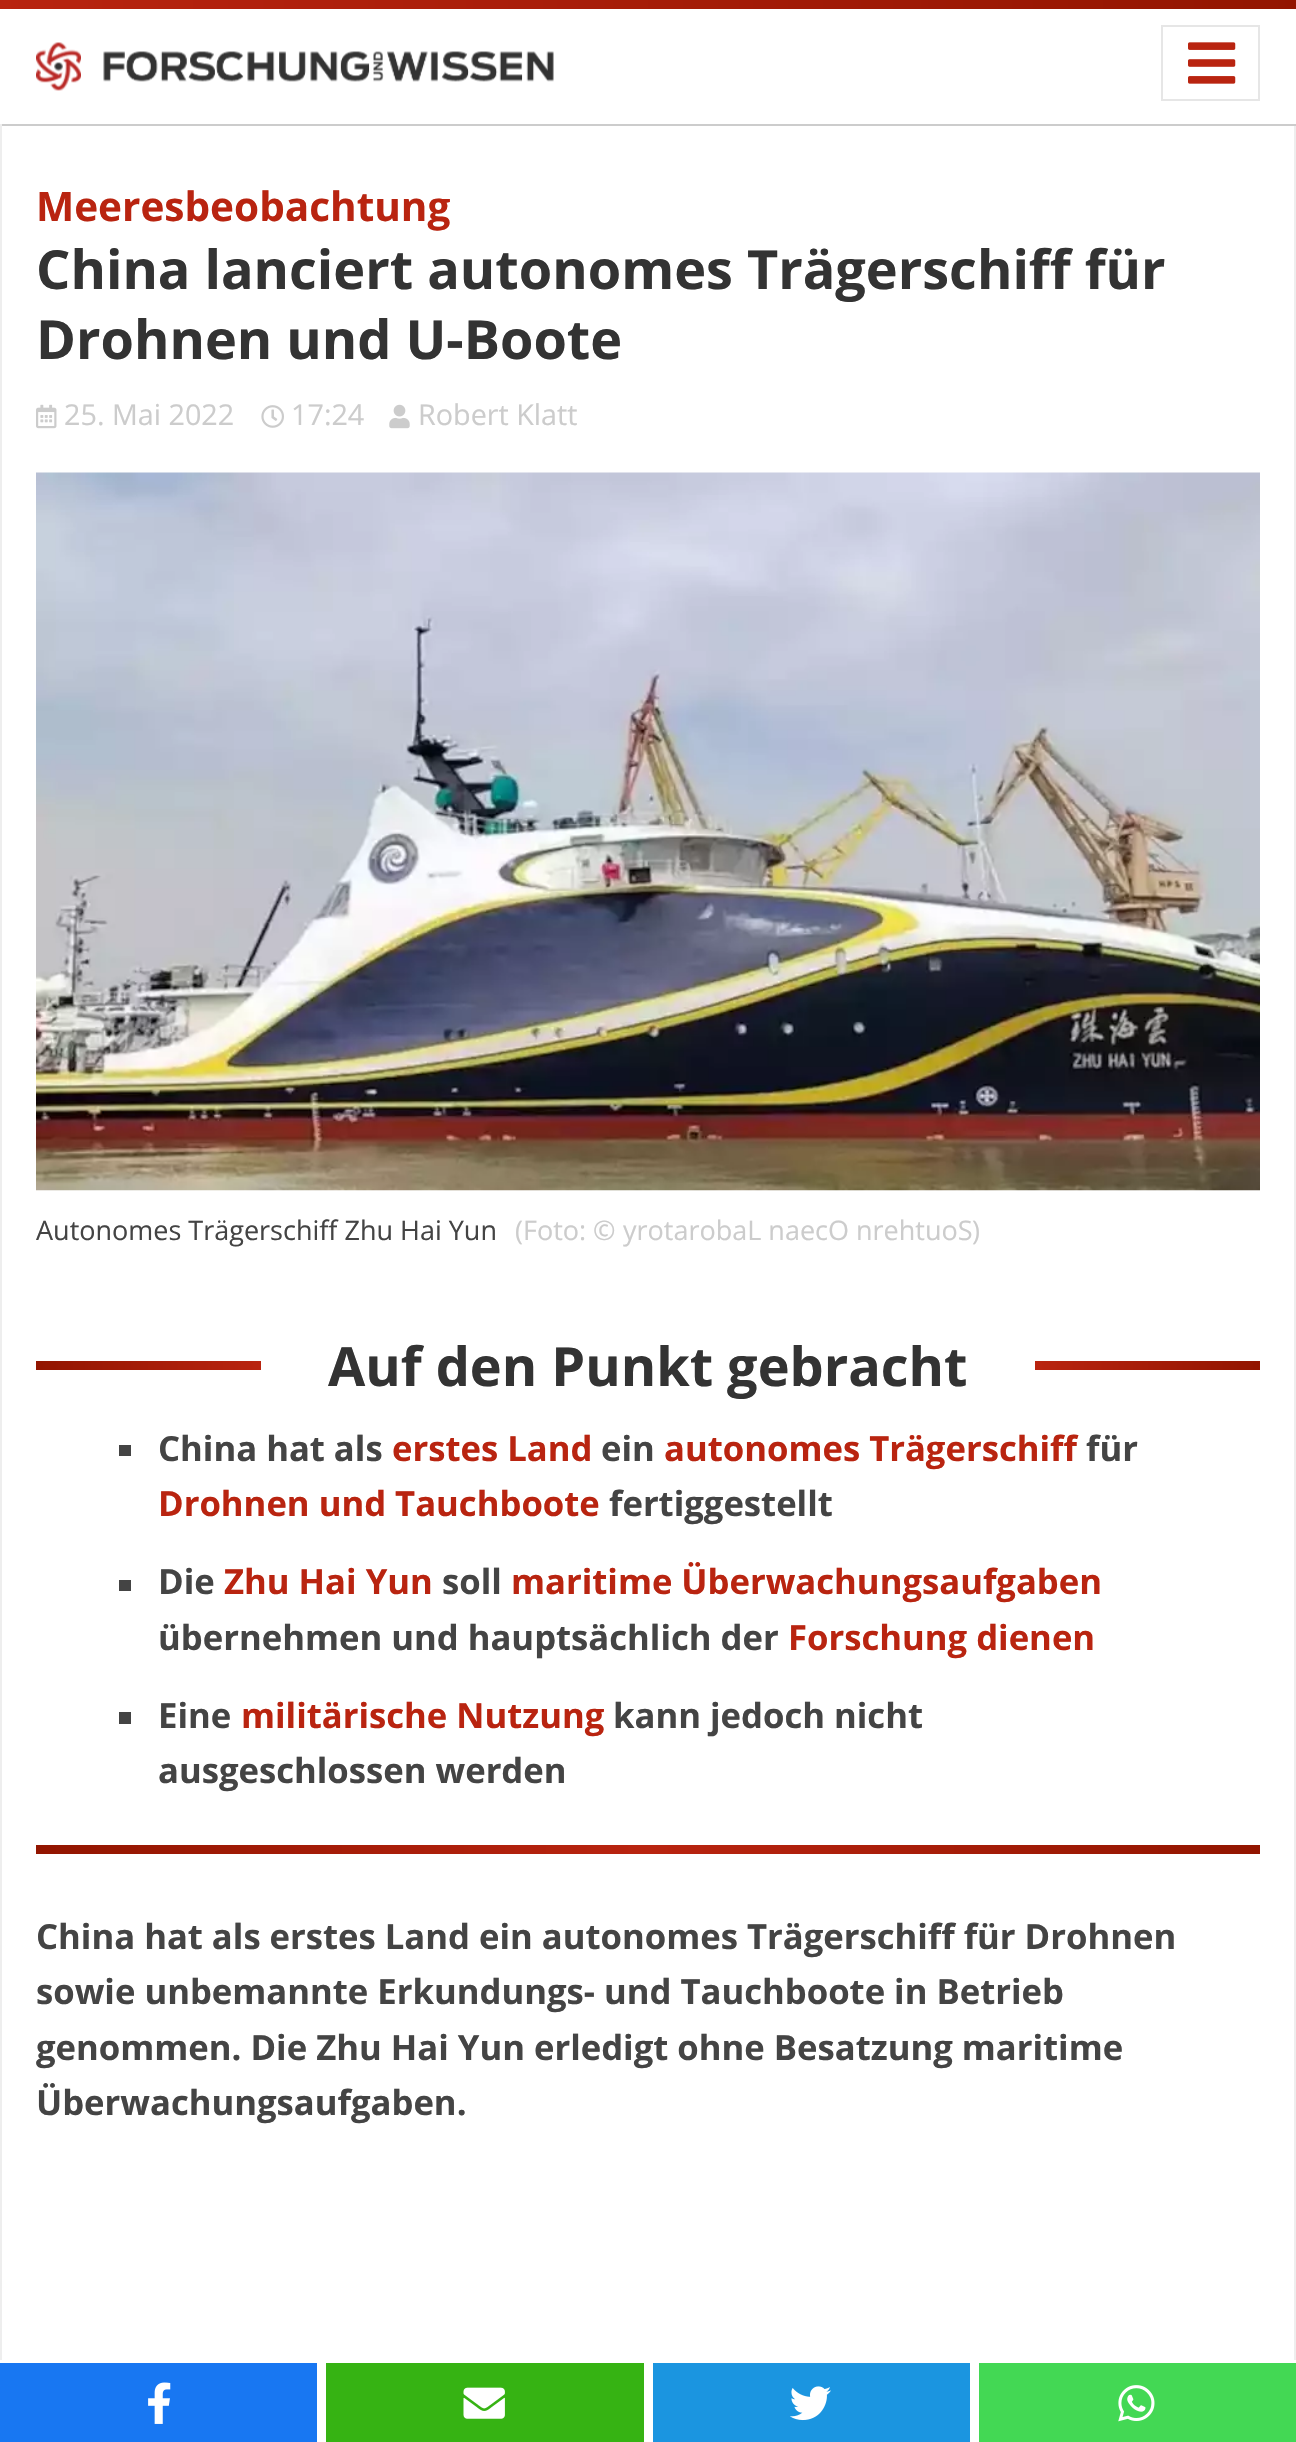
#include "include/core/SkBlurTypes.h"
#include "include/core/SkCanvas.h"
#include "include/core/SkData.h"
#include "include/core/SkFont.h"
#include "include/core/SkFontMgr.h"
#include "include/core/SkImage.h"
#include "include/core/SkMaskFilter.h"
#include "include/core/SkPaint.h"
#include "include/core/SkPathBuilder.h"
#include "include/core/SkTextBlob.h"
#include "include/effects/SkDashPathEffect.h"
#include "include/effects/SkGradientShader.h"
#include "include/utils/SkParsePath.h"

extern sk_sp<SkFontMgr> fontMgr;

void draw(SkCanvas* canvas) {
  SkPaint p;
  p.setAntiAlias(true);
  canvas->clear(SK_ColorWHITE);
  p.setColor(SkColorSetRGB(204, 204, 204));
  canvas->drawRect(SkRect::MakeLTRB(0, 124, 1296, 126), p);
  p.setColor(SkColorSetRGB(238, 238, 238));
  canvas->drawRect(SkRect::MakeLTRB(0, 124, 2, 126), p);
  {
    const SkColor colors[] = {SkColorSetRGB(185, 36, 16), SkColorSetRGB(146, 21, 0)};
    const float stops[] = {0, 1};
    const SkPoint ends[] = {{-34, 4.5f}, {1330, 4.5f}};
    p.setShader(SkGradientShader::MakeLinear(ends, colors, stops, 2, SkTileMode::kClamp));
    p.setAlpha(255);
  }
  canvas->drawRect(SkRect::MakeLTRB(0, 0, 1296, 9), p);
  canvas->drawImageRect(SkImages::DeferredFromEncodedData(SkData::MakeFromFileName("images/1.png")), SkRect::MakeLTRB(36, 42, 81, 91), SkSamplingOptions());
  canvas->drawImageRect(SkImages::DeferredFromEncodedData(SkData::MakeFromFileName("images/2.png")), SkRect::MakeLTRB(103, 51, 554, 82), SkSamplingOptions());
  p.setStyle(SkPaint::kStroke_Style);
  p.setStrokeWidth(2);
  p.setShader(nullptr);
  p.setColor(SkColorSetRGB(230, 230, 230));
  canvas->drawRect(SkRect::MakeLTRB(1162, 26, 1259, 100), p);
  canvas->drawImageRect(SkImages::DeferredFromEncodedData(SkData::MakeFromFileName("images/3.png")), SkRect::MakeLTRB(1188, 42, 1236, 84), SkSamplingOptions());
  p.setStyle(SkPaint::kFill_Style);
  p.setColor(SkColorSetRGB(238, 238, 238));
  canvas->drawRect(SkRect::MakeLTRB(1294, 126, 1296, 2360), p);
  canvas->drawRect(SkRect::MakeLTRB(0, 126, 2, 2360), p);
  canvas->drawImageRect(SkImages::DeferredFromEncodedData(SkData::MakeFromFileName("images/4.png")), SkRect::MakeLTRB(36, 404, 57, 429), SkSamplingOptions());
  canvas->drawImageRect(SkImages::DeferredFromEncodedData(SkData::MakeFromFileName("images/5.png")), SkRect::MakeLTRB(261, 405, 284, 428), SkSamplingOptions());
  canvas->drawImageRect(SkImages::DeferredFromEncodedData(SkData::MakeFromFileName("images/6.png")), SkRect::MakeLTRB(389, 404, 410, 429), SkSamplingOptions());
  canvas->drawImageRect(SkImages::DeferredFromEncodedData(SkData::MakeFromFileName("images/7.png")), SkRect::MakeLTRB(36, 472, 1260, 1191), SkSamplingOptions());
  {
    const SkColor colors[] = {SkColorSetRGB(146, 21, 0), SkColorSetRGB(185, 36, 16)};
    const float stops[] = {0, 1};
    const SkPoint ends[] = {{36, 1366}, {261, 1366}};
    p.setShader(SkGradientShader::MakeLinear(ends, colors, stops, 2, SkTileMode::kClamp));
    p.setAlpha(255);
  }
  canvas->drawRect(SkRect::MakeLTRB(36, 1361, 261, 1370), p);
  {
    const SkColor colors[] = {SkColorSetRGB(185, 36, 16), SkColorSetRGB(146, 21, 0)};
    const float stops[] = {0, 1};
    const SkPoint ends[] = {{1035, 1366}, {1260, 1366}};
    p.setShader(SkGradientShader::MakeLinear(ends, colors, stops, 2, SkTileMode::kClamp));
    p.setAlpha(255);
  }
  canvas->drawRect(SkRect::MakeLTRB(1035, 1361, 1260, 1370), p);
  p.setShader(nullptr);
  p.setColor(SkColorSetRGB(68, 68, 68));
  canvas->drawRect(SkRect::MakeLTRB(119, 1445, 131, 1456), p);
  canvas->drawRect(SkRect::MakeLTRB(119, 1580, 131, 1591), p);
  canvas->drawRect(SkRect::MakeLTRB(119, 1712, 131, 1724), p);
  {
    const SkColor colors[] = {SkColorSetRGB(146, 21, 0), SkColorSetRGB(185, 36, 16), SkColorSetRGB(146, 21, 0)};
    const float stops[] = {0, 0.5f, 1};
    const SkPoint ends[] = {{36, 1850}, {1260, 1850}};
    p.setShader(SkGradientShader::MakeLinear(ends, colors, stops, 3, SkTileMode::kClamp));
    p.setAlpha(255);
  }
  canvas->drawRect(SkRect::MakeLTRB(36, 1845, 1260, 1854), p);
  p.setShader(nullptr);
  p.setColor(SkColorSetRGB(24, 119, 242));
  canvas->drawRect(SkRect::MakeLTRB(0, 2363, 317, 2442), p);
  canvas->drawImageRect(SkImages::DeferredFromEncodedData(SkData::MakeFromFileName("images/8.png")), SkRect::MakeLTRB(148, 2382, 171, 2424), SkSamplingOptions());
  p.setColor(SkColorSetRGB(54, 179, 19));
  canvas->drawRect(SkRect::MakeLTRB(326, 2363, 644, 2442), p);
  canvas->drawImageRect(SkImages::DeferredFromEncodedData(SkData::MakeFromFileName("images/9.png")), SkRect::MakeLTRB(463, 2387, 505, 2419), SkSamplingOptions());
  p.setColor(SkColorSetRGB(27, 149, 224));
  canvas->drawRect(SkRect::MakeLTRB(653, 2363, 970, 2442), p);
  canvas->drawImageRect(SkImages::DeferredFromEncodedData(SkData::MakeFromFileName("images/10.png")), SkRect::MakeLTRB(790, 2386, 831, 2421), SkSamplingOptions());
  p.setColor(SkColorSetRGB(67, 216, 84));
  canvas->drawRect(SkRect::MakeLTRB(979, 2363, 1296, 2442), p);
  canvas->drawImageRect(SkImages::DeferredFromEncodedData(SkData::MakeFromFileName("images/11.png")), SkRect::MakeLTRB(1118, 2385, 1155, 2422), SkSamplingOptions());
  SkFont font1(fontMgr->matchFamilyStyle("Open Sans", SkFontStyle::Bold()), 40.5f);
  font1.setSubpixel(true);
  p.setColor(SkColorSetRGB(185, 36, 16));
  canvas->drawString("Meeresbeobachtung", 36, 221, font1, p);
  SkFont font2(fontMgr->matchFamilyStyle("Open Sans", SkFontStyle::Bold()), 54);
  font2.setSubpixel(true);
  p.setColor(SkColorSetRGB(51, 51, 51));
  canvas->drawString("China lanciert autonomes Trägerschiff für", 36, 289, font2, p);
  canvas->drawString("Drohnen und U-Boote", 36, 359, font2, p);
  SkFont font3(fontMgr->matchFamilyStyle("Open Sans", SkFontStyle::Normal()), 28.75f);
  font3.setSubpixel(true);
  p.setColor(SkColorSetRGB(204, 204, 204));
  canvas->drawString("25. Mai 2022", 64, 425, font3, p);
  canvas->drawString("17:24", 291, 425, font3, p);
  canvas->drawString("Robert Klatt", 418, 425, font3, p);
  SkFont font4(fontMgr->matchFamilyStyle("Open Sans", SkFontStyle::Normal()), 27);
  font4.setSubpixel(true);
  p.setColor(SkColorSetRGB(68, 68, 68));
  canvas->drawString("Autonomes Trägerschiff Zhu Hai Yun", 36, 1240, font4, p);
  p.setColor(SkColorSetRGB(204, 204, 204));
  canvas->drawString("(Foto: ©", 515, 1240, font4, p);
  canvas->drawString("yrotarobaL naecO nrehtuoS", 623, 1240, font4, p);
  canvas->drawString(")", 972, 1240, font4, p);
  p.setColor(SkColorSetRGB(51, 51, 51));
  canvas->drawString("Auf den Punkt gebracht", 328, 1386, font2, p);
  SkFont font5(fontMgr->matchFamilyStyle("Open Sans", SkFontStyle::Bold()), 34.65f);
  font5.setSubpixel(true);
  p.setColor(SkColorSetRGB(68, 68, 68));
  canvas->drawString("China hat als", 158, 1461, font5, p);
  p.setColor(SkColorSetRGB(185, 36, 16));
  canvas->drawString("erstes Land", 392, 1461, font5, p);
  p.setColor(SkColorSetRGB(68, 68, 68));
  canvas->drawString("ein", 601, 1461, font5, p);
  p.setColor(SkColorSetRGB(185, 36, 16));
  canvas->drawString("autonomes Trägerschiff", 664, 1461, font5, p);
  p.setColor(SkColorSetRGB(68, 68, 68));
  canvas->drawString("für", 1086, 1461, font5, p);
  p.setColor(SkColorSetRGB(185, 36, 16));
  canvas->drawString("Drohnen und Tauchboote", 158, 1516, font5, p);
  p.setColor(SkColorSetRGB(68, 68, 68));
  canvas->drawString("fertiggestellt", 609, 1516, font5, p);
  canvas->drawString("Die", 158, 1594, font5, p);
  p.setColor(SkColorSetRGB(185, 36, 16));
  canvas->drawString("Zhu Hai Yun", 224, 1594, font5, p);
  p.setColor(SkColorSetRGB(68, 68, 68));
  canvas->drawString("soll", 442, 1594, font5, p);
  p.setColor(SkColorSetRGB(185, 36, 16));
  canvas->drawString("maritime Überwachungsaufgaben", 511, 1594, font5, p);
  p.setColor(SkColorSetRGB(68, 68, 68));
  canvas->drawString("übernehmen und hauptsächlich der", 158, 1650, font5, p);
  p.setColor(SkColorSetRGB(185, 36, 16));
  canvas->drawString("Forschung dienen", 788, 1650, font5, p);
  p.setColor(SkColorSetRGB(68, 68, 68));
  canvas->drawString("Eine", 158, 1728, font5, p);
  p.setColor(SkColorSetRGB(185, 36, 16));
  canvas->drawString("militärische Nutzung", 241, 1728, font5, p);
  p.setColor(SkColorSetRGB(68, 68, 68));
  canvas->drawString("kann jedoch nicht", 613, 1728, font5, p);
  canvas->drawString("ausgeschlossen werden", 158, 1783, font5, p);
  canvas->drawString("China hat als erstes Land ein autonomes Trägerschiff für Drohnen", 36, 1949, font5, p);
  canvas->drawString("sowie unbemannte Erkundungs- und Tauchboote in Betrieb", 36, 2004, font5, p);
  canvas->drawString("genommen. Die Zhu Hai Yun erledigt ohne Besatzung maritime", 36, 2060, font5, p);
  canvas->drawString("Überwachungsaufgaben.", 36, 2115, font5, p);
}
